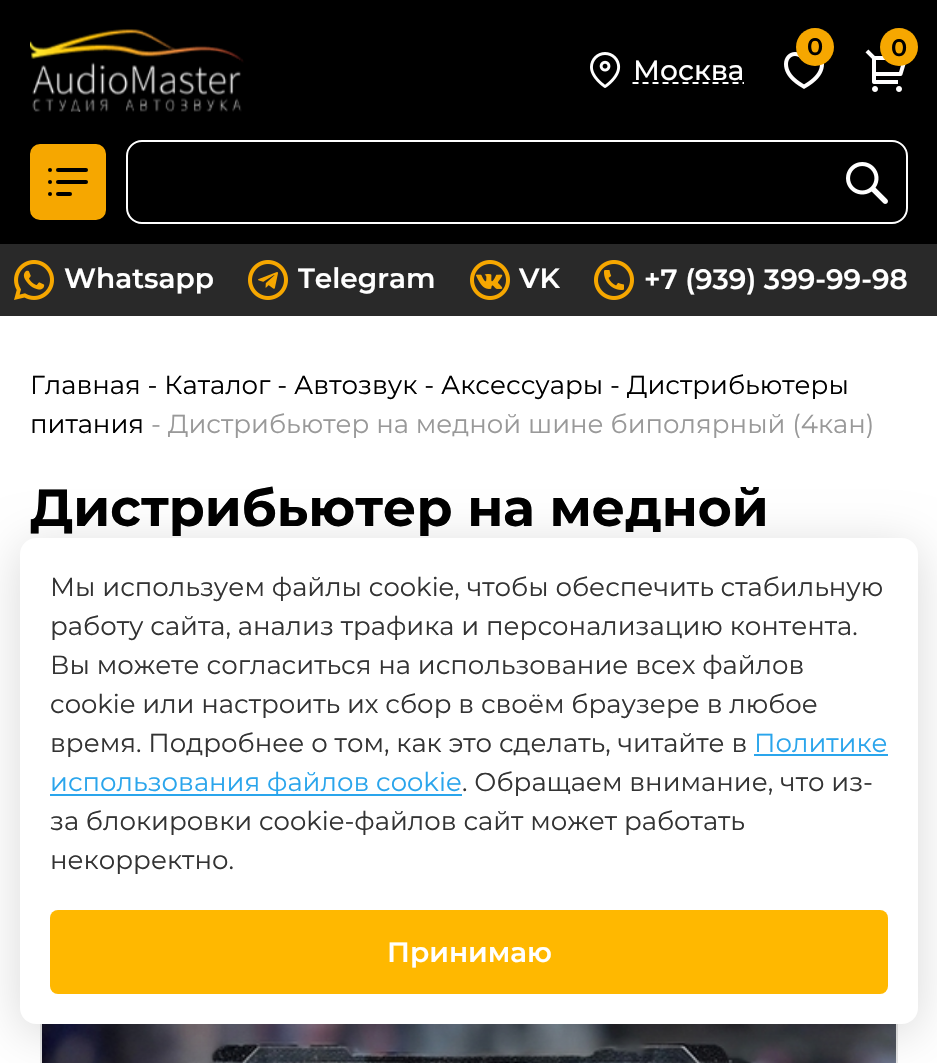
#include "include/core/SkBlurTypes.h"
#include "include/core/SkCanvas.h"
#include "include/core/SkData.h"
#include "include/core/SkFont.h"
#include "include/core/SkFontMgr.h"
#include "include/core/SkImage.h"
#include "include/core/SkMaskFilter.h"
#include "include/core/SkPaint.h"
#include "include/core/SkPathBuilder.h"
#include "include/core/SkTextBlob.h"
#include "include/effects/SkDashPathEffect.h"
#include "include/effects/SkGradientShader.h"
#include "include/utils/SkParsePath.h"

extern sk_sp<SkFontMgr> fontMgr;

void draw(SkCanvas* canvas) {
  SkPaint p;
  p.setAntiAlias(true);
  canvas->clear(SK_ColorWHITE);
  p.setColor(SK_ColorBLACK);
  canvas->drawRect(SkRect::MakeLTRB(0, 0, 937, 244), p);
  canvas->drawImageRect(SkImages::DeferredFromEncodedData(SkData::MakeFromFileName("images/1.png")), SkRect::MakeLTRB(30, 29, 244, 112), SkSamplingOptions());
  canvas->drawImageRect(SkImages::DeferredFromEncodedData(SkData::MakeFromFileName("images/2.png")), SkRect::MakeLTRB(784, 52, 824, 89), SkSamplingOptions());
  p.setColor(SkColorSetRGB(246, 167, 0));
  canvas->drawCircle(815, 47, 19, p);
  canvas->drawImageRect(SkImages::DeferredFromEncodedData(SkData::MakeFromFileName("images/3.png")), SkRect::MakeLTRB(865, 49, 906, 92), SkSamplingOptions());
  canvas->drawCircle(899, 47, 19, p);
  canvas->drawImageRect(SkImages::DeferredFromEncodedData(SkData::MakeFromFileName("images/4.png")), SkRect::MakeLTRB(590, 52, 621, 88), SkSamplingOptions());
  p.setStyle(SkPaint::kStroke_Style);
  p.setStrokeWidth(2);
  p.setColor(SK_ColorWHITE);
  p.setPathEffect(SkDashPathEffect::Make({{6, 4}}, 0));
  canvas->drawPath(SkPathBuilder().moveTo(632.5f, 83).lineTo(744, 83).detach(), p);
  p.setPathEffect(nullptr);
  p.setStyle(SkPaint::kFill_Style);
  p.setColor(SkColorSetRGB(246, 167, 0));
  canvas->drawRoundRect(SkRect::MakeLTRB(31, 145, 105, 219), 9, 9, p);
  p.setStyle(SkPaint::kStroke_Style);
  canvas->drawRoundRect(SkRect::MakeLTRB(31, 145, 105, 219), 9, 9, p);
  p.setStyle(SkPaint::kFill_Style);
  p.setColor(SK_ColorBLACK);
  canvas->drawRoundRect(SkRect::MakeLTRB(56, 192, 72, 196), 2, 2, p);
  canvas->drawRoundRect(SkRect::MakeLTRB(56, 180, 88, 184), 2, 2, p);
  canvas->drawRoundRect(SkRect::MakeLTRB(56, 168, 88, 172), 2, 2, p);
  canvas->drawCircle(50, 170, 2, p);
  canvas->drawCircle(50, 182, 2, p);
  canvas->drawCircle(50, 194, 2, p);
  p.setStyle(SkPaint::kStroke_Style);
  p.setColor(SK_ColorWHITE);
  canvas->drawRoundRect(SkRect::MakeLTRB(127, 141, 907, 223), 15, 15, p);
  canvas->drawImageRect(SkImages::DeferredFromEncodedData(SkData::MakeFromFileName("images/5.png")), SkRect::MakeLTRB(846, 162, 888, 204), SkSamplingOptions());
  p.setStyle(SkPaint::kFill_Style);
  p.setColor(SkColorSetRGB(41, 41, 41));
  canvas->drawRect(SkRect::MakeLTRB(0, 244, 937, 316), p);
  canvas->drawImageRect(SkImages::DeferredFromEncodedData(SkData::MakeFromFileName("images/6.png")), SkRect::MakeLTRB(14, 260, 54, 300), SkSamplingOptions());
  canvas->drawImageRect(SkImages::DeferredFromEncodedData(SkData::MakeFromFileName("images/7.png")), SkRect::MakeLTRB(248, 260, 288, 300), SkSamplingOptions());
  canvas->drawImageRect(SkImages::DeferredFromEncodedData(SkData::MakeFromFileName("images/8.png")), SkRect::MakeLTRB(470, 260, 510, 300), SkSamplingOptions());
  canvas->drawImageRect(SkImages::DeferredFromEncodedData(SkData::MakeFromFileName("images/9.png")), SkRect::MakeLTRB(594, 260, 634, 300), SkSamplingOptions());
  p.setStyle(SkPaint::kStroke_Style);
  p.setColor(SkColorSetRGB(228, 228, 228));
  canvas->drawRect(SkRect::MakeLTRB(41, 821, 897, 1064), p);
  canvas->drawImageRect(SkImages::DeferredFromEncodedData(SkData::MakeFromFileName("images/10.png")), SkRect::MakeLTRB(42, 1024, 896, 1063), SkSamplingOptions());
  p.setStyle(SkPaint::kFill_Style);
  p.setColor(SkColorSetARGB(38, 0, 0, 0));
  p.setMaskFilter(SkMaskFilter::MakeBlur(kNormal_SkBlurStyle, 24));
  canvas->drawRoundRect(SkRect::MakeLTRB(20, 546, 918, 1032), 16, 16, p);
  p.setMaskFilter(nullptr);
  p.setColor(SK_ColorWHITE);
  canvas->drawRoundRect(SkRect::MakeLTRB(20, 538, 918, 1024), 16, 16, p);
  p.setColor(SkColorSetRGB(42, 165, 236));
  canvas->drawRect(SkRect::MakeLTRB(754, 754, 888, 756), p);
  canvas->drawRect(SkRect::MakeLTRB(50, 794, 462, 796), p);
  p.setColor(SkColorSetRGB(255, 184, 0));
  canvas->drawRoundRect(SkRect::MakeLTRB(50, 910, 888, 994), 8, 8, p);
  SkFont font1(fontMgr->matchFamilyStyle("Montserrat", SkFontStyle(600, SkFontStyle::kNormal_Width, SkFontStyle::kUpright_Slant)), 24);
  font1.setSubpixel(true);
  p.setColor(SK_ColorBLACK);
  canvas->drawString("0", 807, 55, font1, p);
  canvas->drawString("0", 891, 56, font1, p);
  SkFont font2(fontMgr->matchFamilyStyle("Montserrat", SkFontStyle(500, SkFontStyle::kNormal_Width, SkFontStyle::kUpright_Slant)), 28);
  font2.setSubpixel(true);
  p.setColor(SK_ColorWHITE);
  canvas->drawString("Москва", 633, 80, font2, p);
  SkFont font3(fontMgr->matchFamilyStyle("Montserrat", SkFontStyle(600, SkFontStyle::kNormal_Width, SkFontStyle::kUpright_Slant)), 28);
  font3.setSubpixel(true);
  canvas->drawString("Whatsapp", 64, 288, font3, p);
  canvas->drawString("Telegram", 298, 288, font3, p);
  canvas->drawString("VK", 519, 288, font3, p);
  canvas->drawString("+7 (939) 399-99-98", 644, 289, font3, p);
  SkFont font4(fontMgr->matchFamilyStyle("Montserrat", SkFontStyle::Normal()), 26);
  font4.setSubpixel(true);
  p.setColor(SK_ColorBLACK);
  canvas->drawString("Главная - Каталог - Автозвук - Аксессуары - Дистрибьютеры", 30, 394, font4, p);
  canvas->drawString("питания", 30, 433, font4, p);
  p.setColor(SkColorSetRGB(153, 153, 153));
  canvas->drawString("- Дистрибьютер на медной шине биполярный (4кан)", 151, 433, font4, p);
  SkFont font5(fontMgr->matchFamilyStyle("Montserrat", SkFontStyle::Bold()), 52);
  font5.setSubpixel(true);
  p.setColor(SK_ColorBLACK);
  canvas->drawString("Дистрибьютер на медной", 30, 526, font5, p);
  p.setColor(SkColorSetRGB(51, 51, 51));
  canvas->drawString("Мы используем файлы cookie, чтобы обеспечить стабильную", 50, 596, font4, p);
  canvas->drawString("работу сайта, анализ трафика и персонализацию контента.", 50, 635, font4, p);
  canvas->drawString("Вы можете согласиться на использование всех файлов", 50, 674, font4, p);
  canvas->drawString("cookie или настроить их сбор в своём браузере в любое", 50, 713, font4, p);
  canvas->drawString("время. Подробнее о том, как это сделать, читайте в", 50, 752, font4, p);
  p.setColor(SkColorSetRGB(42, 165, 236));
  canvas->drawString("Политике", 754, 752, font4, p);
  canvas->drawString("использования файлов cookie", 50, 791, font4, p);
  p.setColor(SkColorSetRGB(51, 51, 51));
  canvas->drawString(". Обращаем внимание, что из-", 462, 791, font4, p);
  canvas->drawString("за блокировки cookie-файлов сайт может работать", 50, 830, font4, p);
  canvas->drawString("некорректно.", 50, 869, font4, p);
  p.setColor(SK_ColorWHITE);
  canvas->drawString("Принимаю", 387, 962, font3, p);
}
